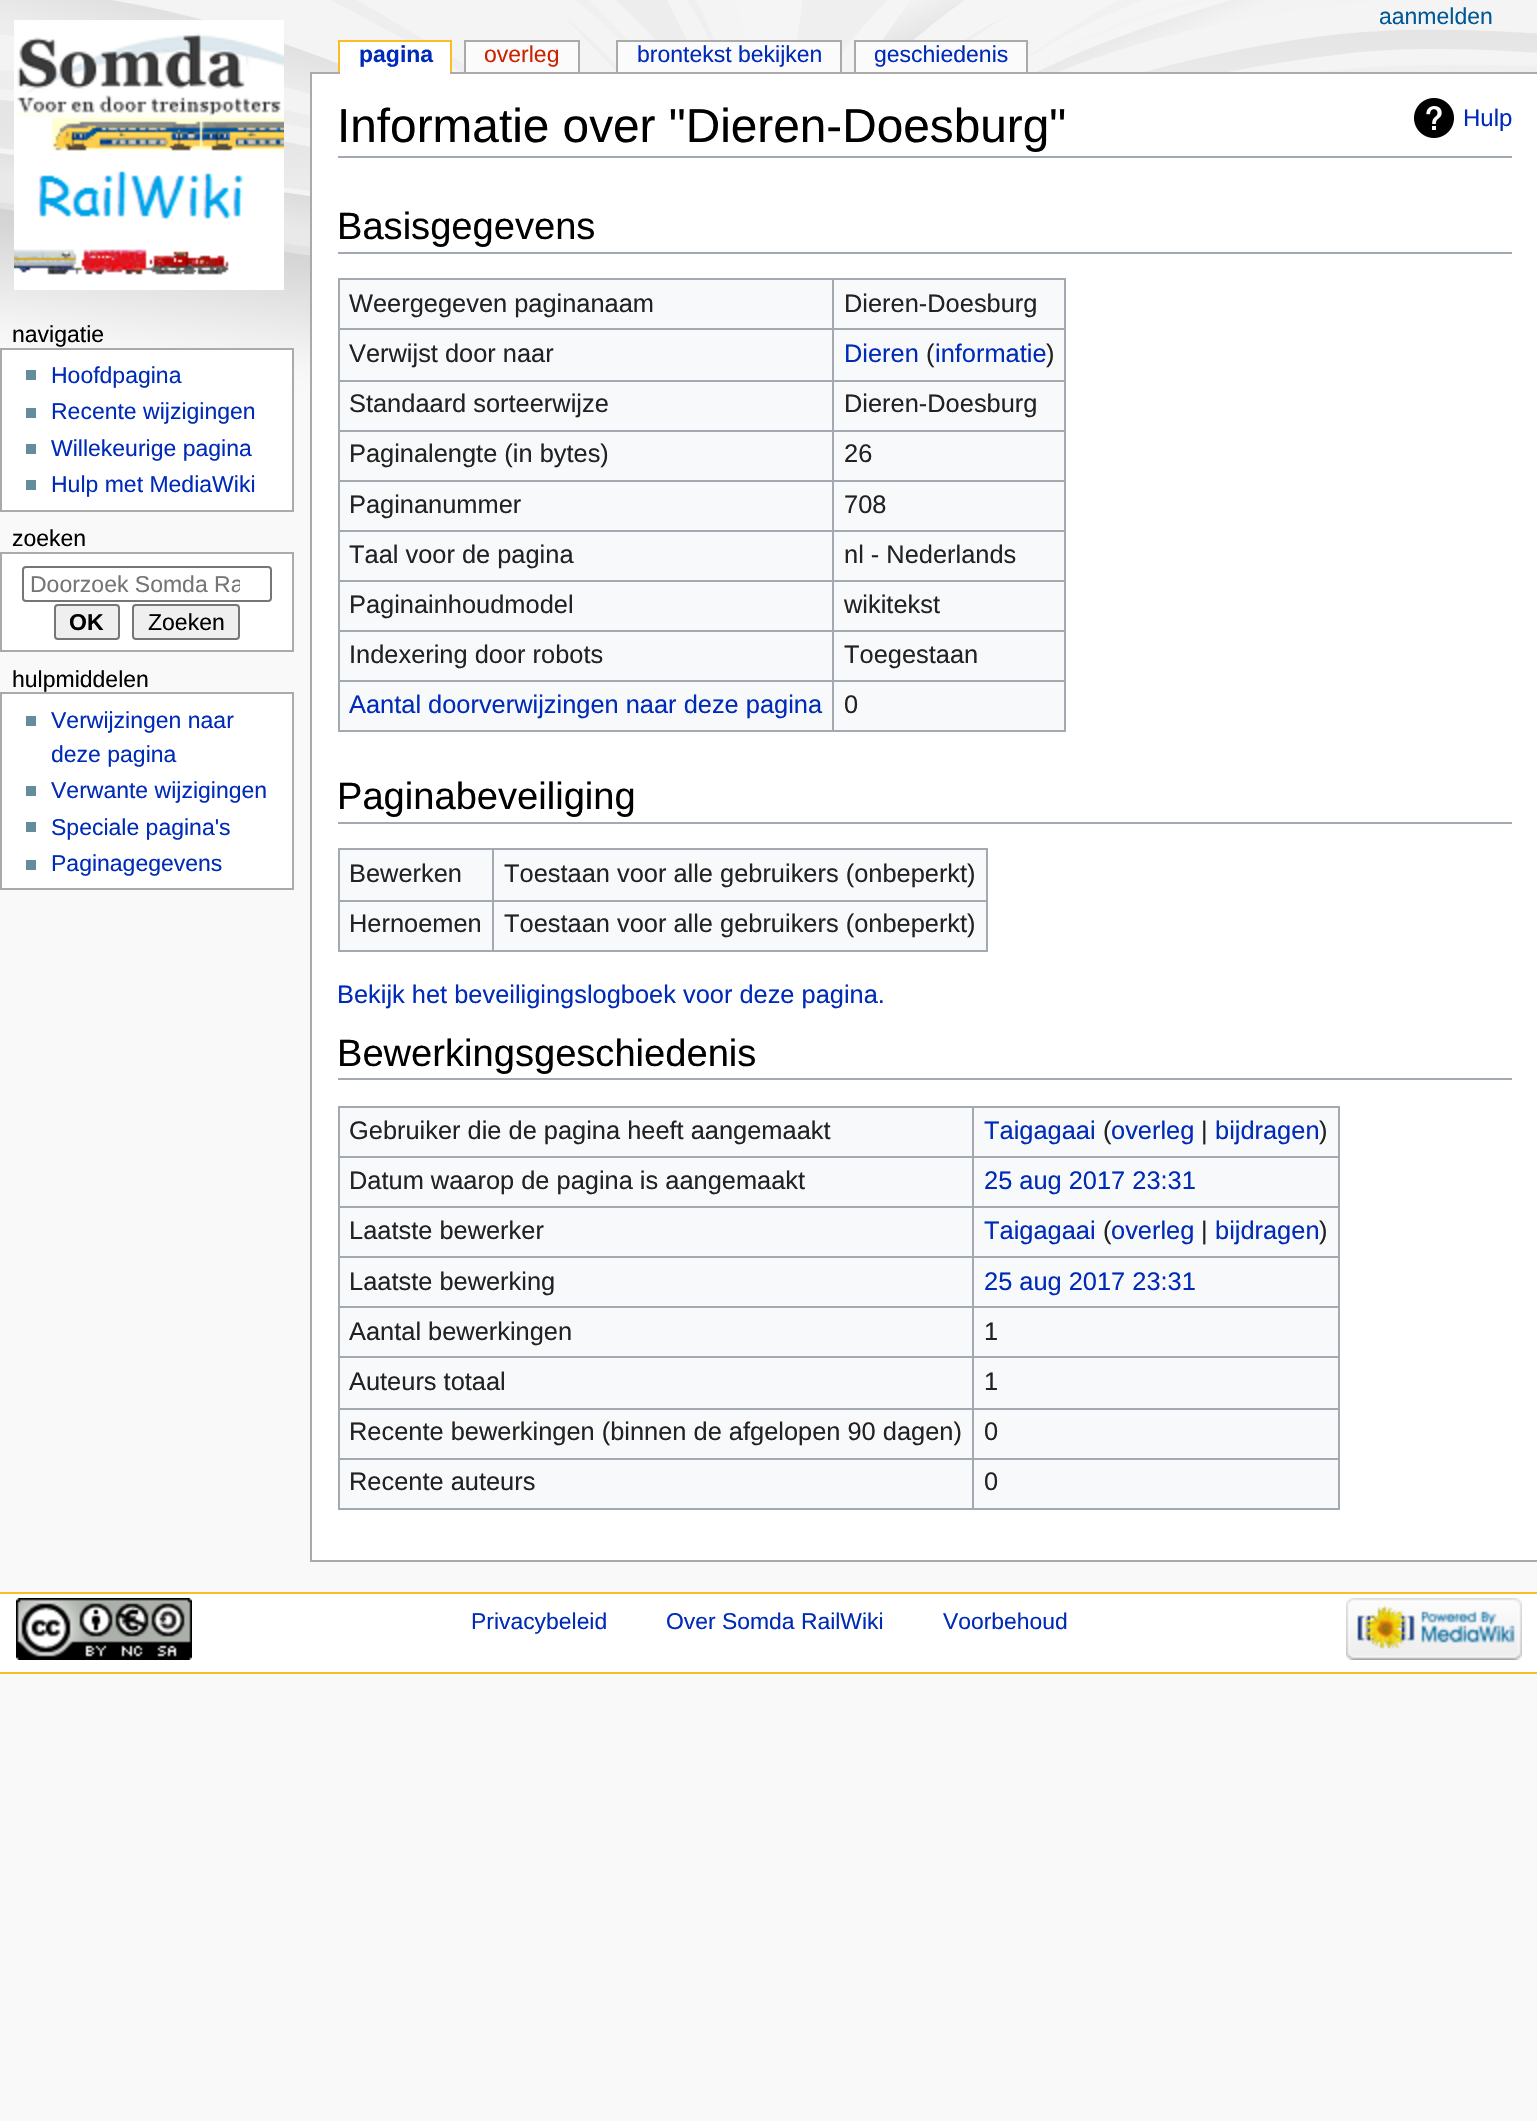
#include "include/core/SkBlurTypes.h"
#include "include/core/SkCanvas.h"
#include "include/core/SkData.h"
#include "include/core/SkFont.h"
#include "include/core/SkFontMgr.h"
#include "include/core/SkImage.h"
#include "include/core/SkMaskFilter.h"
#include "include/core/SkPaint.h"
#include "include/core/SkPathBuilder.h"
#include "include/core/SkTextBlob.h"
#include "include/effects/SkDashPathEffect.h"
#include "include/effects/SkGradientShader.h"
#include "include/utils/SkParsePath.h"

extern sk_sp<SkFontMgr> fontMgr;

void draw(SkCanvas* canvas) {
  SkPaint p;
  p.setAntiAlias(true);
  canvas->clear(SkColorSetRGB(249, 249, 249));
  canvas->drawImageRect(SkImages::DeferredFromEncodedData(SkData::MakeFromFileName("images/1.png")), SkRect::MakeLTRB(0, 0, 1537, 419), SkSamplingOptions());
  canvas->drawImageRect(SkImages::DeferredFromEncodedData(SkData::MakeFromFileName("images/2.png")), SkRect::MakeLTRB(14, 20, 284, 290), SkSamplingOptions());
  p.setColor(SkColorSetRGB(250, 189, 35));
  canvas->drawRect(SkRect::MakeLTRB(338, 40, 452, 42), p);
  canvas->drawRect(SkRect::MakeLTRB(450, 40, 452, 72), p);
  canvas->drawRect(SkRect::MakeLTRB(338, 40, 340, 72), p);
  p.setColor(SkColorSetRGB(170, 170, 170));
  canvas->drawRect(SkRect::MakeLTRB(310, 72, 1537, 74), p);
  p.setColor(SK_ColorWHITE);
  canvas->drawRect(SkRect::MakeLTRB(340, 42, 450, 74), p);
  p.setColor(SkColorSetRGB(170, 170, 170));
  canvas->drawRect(SkRect::MakeLTRB(464, 40, 580, 42), p);
  canvas->drawRect(SkRect::MakeLTRB(578, 40, 580, 72), p);
  canvas->drawRect(SkRect::MakeLTRB(464, 40, 466, 72), p);
  p.setColor(SkColorSetRGB(251, 251, 251));
  canvas->drawRect(SkRect::MakeLTRB(466, 42, 578, 72), p);
  p.setColor(SkColorSetRGB(170, 170, 170));
  canvas->drawRect(SkRect::MakeLTRB(616, 40, 842, 42), p);
  canvas->drawRect(SkRect::MakeLTRB(840, 40, 842, 72), p);
  canvas->drawRect(SkRect::MakeLTRB(616, 40, 618, 72), p);
  p.setColor(SkColorSetRGB(251, 251, 251));
  canvas->drawRect(SkRect::MakeLTRB(618, 42, 840, 72), p);
  p.setColor(SkColorSetRGB(170, 170, 170));
  canvas->drawRect(SkRect::MakeLTRB(854, 40, 1028, 42), p);
  canvas->drawRect(SkRect::MakeLTRB(1026, 40, 1028, 72), p);
  canvas->drawRect(SkRect::MakeLTRB(854, 40, 856, 72), p);
  p.setColor(SkColorSetRGB(251, 251, 251));
  canvas->drawRect(SkRect::MakeLTRB(856, 42, 1026, 72), p);
  p.setColor(SK_ColorWHITE);
  canvas->drawRect(SkRect::MakeLTRB(1, 349, 293, 511), p);
  p.setStyle(SkPaint::kStroke_Style);
  p.setStrokeWidth(2);
  p.setColor(SkColorSetRGB(170, 170, 170));
  canvas->drawRect(SkRect::MakeLTRB(1, 349, 293, 511), p);
  p.setStyle(SkPaint::kFill_Style);
  p.setColor(SkColorSetRGB(99, 140, 156));
  canvas->drawRect(SkRect::MakeLTRB(26, 370, 36, 380), p);
  canvas->drawRect(SkRect::MakeLTRB(26, 408, 36, 418), p);
  canvas->drawRect(SkRect::MakeLTRB(26, 444, 36, 454), p);
  canvas->drawRect(SkRect::MakeLTRB(26, 480, 36, 490), p);
  p.setColor(SK_ColorWHITE);
  canvas->drawRect(SkRect::MakeLTRB(1, 553, 293, 651), p);
  p.setStyle(SkPaint::kStroke_Style);
  p.setColor(SkColorSetRGB(170, 170, 170));
  canvas->drawRect(SkRect::MakeLTRB(1, 553, 293, 651), p);
  p.setColor(SkColorSetRGB(118, 118, 118));
  canvas->drawRoundRect(SkRect::MakeLTRB(23, 567, 271, 601), 3, 3, p);
  p.setStyle(SkPaint::kFill_Style);
  p.setColor(SkColorSetRGB(239, 239, 239));
  canvas->drawRoundRect(SkRect::MakeLTRB(55, 605, 119, 639), 3, 3, p);
  p.setStyle(SkPaint::kStroke_Style);
  p.setColor(SkColorSetRGB(118, 118, 118));
  canvas->drawRoundRect(SkRect::MakeLTRB(55, 605, 119, 639), 3, 3, p);
  p.setStyle(SkPaint::kFill_Style);
  p.setColor(SkColorSetRGB(239, 239, 239));
  canvas->drawRoundRect(SkRect::MakeLTRB(133, 605, 239, 639), 3, 3, p);
  p.setStyle(SkPaint::kStroke_Style);
  p.setColor(SkColorSetRGB(118, 118, 118));
  canvas->drawRoundRect(SkRect::MakeLTRB(133, 605, 239, 639), 3, 3, p);
  p.setStyle(SkPaint::kFill_Style);
  p.setColor(SK_ColorWHITE);
  canvas->drawRect(SkRect::MakeLTRB(1, 693, 293, 889), p);
  p.setStyle(SkPaint::kStroke_Style);
  p.setColor(SkColorSetRGB(170, 170, 170));
  canvas->drawRect(SkRect::MakeLTRB(1, 693, 293, 889), p);
  p.setStyle(SkPaint::kFill_Style);
  p.setColor(SkColorSetRGB(99, 140, 156));
  canvas->drawRect(SkRect::MakeLTRB(26, 716, 36, 726), p);
  canvas->drawRect(SkRect::MakeLTRB(26, 786, 36, 796), p);
  canvas->drawRect(SkRect::MakeLTRB(26, 822, 36, 832), p);
  canvas->drawRect(SkRect::MakeLTRB(26, 860, 36, 870), p);
  p.setColor(SK_ColorWHITE);
  canvas->drawRect(SkRect::MakeLTRB(312, 74, 1537, 1560), p);
  p.setColor(SkColorSetRGB(170, 170, 170));
  canvas->drawRect(SkRect::MakeLTRB(310, 1560, 1537, 1562), p);
  canvas->drawRect(SkRect::MakeLTRB(310, 72, 312, 1562), p);
  p.setColor(SkColorSetRGB(162, 169, 177));
  canvas->drawRect(SkRect::MakeLTRB(338, 156, 1512, 158), p);
  canvas->drawImageRect(SkImages::DeferredFromEncodedData(SkData::MakeFromFileName("images/3.png")), SkRect::MakeLTRB(1414, 98, 1454, 138), SkSamplingOptions());
  canvas->drawRect(SkRect::MakeLTRB(338, 252, 1512, 254), p);
  p.setColor(SkColorSetRGB(248, 249, 250));
  canvas->drawRect(SkRect::MakeLTRB(340, 280, 1064, 730), p);
  p.setColor(SkColorSetRGB(162, 169, 177));
  canvas->drawRect(SkRect::MakeLTRB(338, 278, 1066, 280), p);
  canvas->drawRect(SkRect::MakeLTRB(1064, 278, 1066, 732), p);
  canvas->drawRect(SkRect::MakeLTRB(338, 730, 1066, 732), p);
  canvas->drawRect(SkRect::MakeLTRB(338, 278, 340, 732), p);
  canvas->drawRect(SkRect::MakeLTRB(832, 328, 1066, 330), p);
  canvas->drawRect(SkRect::MakeLTRB(832, 380, 1066, 382), p);
  canvas->drawRect(SkRect::MakeLTRB(832, 430, 1066, 432), p);
  canvas->drawRect(SkRect::MakeLTRB(832, 480, 1066, 482), p);
  canvas->drawRect(SkRect::MakeLTRB(832, 530, 1066, 532), p);
  canvas->drawRect(SkRect::MakeLTRB(832, 580, 1066, 582), p);
  canvas->drawRect(SkRect::MakeLTRB(832, 630, 1066, 632), p);
  canvas->drawRect(SkRect::MakeLTRB(832, 680, 1066, 682), p);
  canvas->drawRect(SkRect::MakeLTRB(832, 680, 834, 732), p);
  canvas->drawRect(SkRect::MakeLTRB(338, 680, 834, 682), p);
  canvas->drawRect(SkRect::MakeLTRB(832, 630, 834, 682), p);
  canvas->drawRect(SkRect::MakeLTRB(338, 630, 834, 632), p);
  canvas->drawRect(SkRect::MakeLTRB(832, 580, 834, 632), p);
  canvas->drawRect(SkRect::MakeLTRB(338, 580, 834, 582), p);
  canvas->drawRect(SkRect::MakeLTRB(832, 530, 834, 582), p);
  canvas->drawRect(SkRect::MakeLTRB(338, 530, 834, 532), p);
  canvas->drawRect(SkRect::MakeLTRB(832, 480, 834, 532), p);
  canvas->drawRect(SkRect::MakeLTRB(338, 480, 834, 482), p);
  canvas->drawRect(SkRect::MakeLTRB(832, 430, 834, 482), p);
  canvas->drawRect(SkRect::MakeLTRB(338, 430, 834, 432), p);
  canvas->drawRect(SkRect::MakeLTRB(832, 380, 834, 432), p);
  canvas->drawRect(SkRect::MakeLTRB(338, 380, 834, 382), p);
  canvas->drawRect(SkRect::MakeLTRB(832, 328, 834, 382), p);
  canvas->drawRect(SkRect::MakeLTRB(338, 328, 834, 330), p);
  canvas->drawRect(SkRect::MakeLTRB(832, 278, 834, 330), p);
  canvas->drawRect(SkRect::MakeLTRB(338, 822, 1512, 824), p);
  p.setColor(SkColorSetRGB(248, 249, 250));
  canvas->drawRect(SkRect::MakeLTRB(340, 850, 986, 950), p);
  p.setColor(SkColorSetRGB(162, 169, 177));
  canvas->drawRect(SkRect::MakeLTRB(338, 848, 988, 850), p);
  canvas->drawRect(SkRect::MakeLTRB(986, 848, 988, 952), p);
  canvas->drawRect(SkRect::MakeLTRB(338, 950, 988, 952), p);
  canvas->drawRect(SkRect::MakeLTRB(338, 848, 340, 952), p);
  canvas->drawRect(SkRect::MakeLTRB(492, 900, 988, 902), p);
  canvas->drawRect(SkRect::MakeLTRB(492, 900, 494, 952), p);
  canvas->drawRect(SkRect::MakeLTRB(338, 900, 494, 902), p);
  canvas->drawRect(SkRect::MakeLTRB(492, 848, 494, 902), p);
  canvas->drawRect(SkRect::MakeLTRB(338, 1078, 1512, 1080), p);
  p.setColor(SkColorSetRGB(248, 249, 250));
  canvas->drawRect(SkRect::MakeLTRB(340, 1108, 1338, 1508), p);
  p.setColor(SkColorSetRGB(162, 169, 177));
  canvas->drawRect(SkRect::MakeLTRB(338, 1106, 1340, 1108), p);
  canvas->drawRect(SkRect::MakeLTRB(1338, 1106, 1340, 1510), p);
  canvas->drawRect(SkRect::MakeLTRB(338, 1508, 1340, 1510), p);
  canvas->drawRect(SkRect::MakeLTRB(338, 1106, 340, 1510), p);
  canvas->drawRect(SkRect::MakeLTRB(972, 1156, 1340, 1158), p);
  canvas->drawRect(SkRect::MakeLTRB(972, 1206, 1340, 1208), p);
  canvas->drawRect(SkRect::MakeLTRB(972, 1256, 1340, 1258), p);
  canvas->drawRect(SkRect::MakeLTRB(972, 1306, 1340, 1308), p);
  canvas->drawRect(SkRect::MakeLTRB(972, 1356, 1340, 1358), p);
  canvas->drawRect(SkRect::MakeLTRB(972, 1408, 1340, 1410), p);
  canvas->drawRect(SkRect::MakeLTRB(972, 1458, 1340, 1460), p);
  canvas->drawRect(SkRect::MakeLTRB(972, 1458, 974, 1510), p);
  canvas->drawRect(SkRect::MakeLTRB(338, 1458, 974, 1460), p);
  canvas->drawRect(SkRect::MakeLTRB(972, 1408, 974, 1460), p);
  canvas->drawRect(SkRect::MakeLTRB(338, 1408, 974, 1410), p);
  canvas->drawRect(SkRect::MakeLTRB(972, 1356, 974, 1410), p);
  canvas->drawRect(SkRect::MakeLTRB(338, 1356, 974, 1358), p);
  canvas->drawRect(SkRect::MakeLTRB(972, 1306, 974, 1358), p);
  canvas->drawRect(SkRect::MakeLTRB(338, 1306, 974, 1308), p);
  canvas->drawRect(SkRect::MakeLTRB(972, 1256, 974, 1308), p);
  canvas->drawRect(SkRect::MakeLTRB(338, 1256, 974, 1258), p);
  canvas->drawRect(SkRect::MakeLTRB(972, 1206, 974, 1258), p);
  canvas->drawRect(SkRect::MakeLTRB(338, 1206, 974, 1208), p);
  canvas->drawRect(SkRect::MakeLTRB(972, 1156, 974, 1208), p);
  canvas->drawRect(SkRect::MakeLTRB(338, 1156, 974, 1158), p);
  canvas->drawRect(SkRect::MakeLTRB(972, 1106, 974, 1158), p);
  p.setColor(SK_ColorWHITE);
  canvas->drawRect(SkRect::MakeLTRB(0, 1594, 1537, 1672), p);
  p.setColor(SkColorSetRGB(250, 189, 35));
  canvas->drawRect(SkRect::MakeLTRB(0, 1592, 1537, 1594), p);
  canvas->drawRect(SkRect::MakeLTRB(0, 1672, 1537, 1674), p);
  canvas->drawImageRect(SkImages::DeferredFromEncodedData(SkData::MakeFromFileName("images/4.png")), SkRect::MakeLTRB(16, 1598, 192, 1660), SkSamplingOptions());
  canvas->drawImageRect(SkImages::DeferredFromEncodedData(SkData::MakeFromFileName("images/5.png")), SkRect::MakeLTRB(1346, 1598, 1522, 1660), SkSamplingOptions());
  SkFont font1(fontMgr->matchFamilyStyle("Liberation Sans", SkFontStyle::Normal()), 23);
  font1.setSubpixel(true);
  p.setColor(SkColorSetRGB(0, 88, 150));
  canvas->drawString("aanmelden", 1379, 24, font1, p);
  SkFont font2(fontMgr->matchFamilyStyle("Liberation Sans", SkFontStyle::Bold()), 23);
  font2.setSubpixel(true);
  p.setColor(SkColorSetRGB(0, 43, 184));
  canvas->drawString("pagina", 359, 62, font2, p);
  p.setColor(SkColorSetRGB(204, 34, 0));
  canvas->drawString("overleg", 484, 62, font1, p);
  p.setColor(SkColorSetRGB(0, 43, 184));
  canvas->drawString("brontekst bekijken", 637, 62, font1, p);
  canvas->drawString("geschiedenis", 874, 62, font1, p);
  p.setColor(SK_ColorBLACK);
  canvas->drawString("navigatie", 12, 342, font1, p);
  p.setColor(SkColorSetRGB(0, 43, 184));
  canvas->drawString("Hoofdpagina", 51, 383, font1, p);
  canvas->drawString("Recente wijzigingen", 51, 419, font1, p);
  canvas->drawString("Willekeurige pagina", 51, 456, font1, p);
  canvas->drawString("Hulp met MediaWiki", 51, 492, font1, p);
  p.setColor(SK_ColorBLACK);
  canvas->drawString("zoeken", 12, 546, font1, p);
  canvas->save();
  canvas->clipRect(SkRect::MakeLTRB(30, 572, 240, 596));
  p.setColor(SkColorSetRGB(117, 117, 117));
  canvas->drawString("Doorzoek Somda Ra", 30, 592, font1, p);
  canvas->restore();
  p.setColor(SK_ColorBLACK);
  canvas->drawString("OK", 69, 630, font2, p);
  canvas->drawString("Zoeken", 148, 630, font1, p);
  canvas->drawString("hulpmiddelen", 12, 687, font1, p);
  p.setColor(SkColorSetRGB(0, 43, 184));
  canvas->drawString("Verwijzingen naar", 51, 728, font1, p);
  canvas->drawString("deze pagina", 51, 762, font1, p);
  canvas->drawString("Verwante wijzigingen", 51, 798, font1, p);
  canvas->drawString("Speciale pagina's", 51, 835, font1, p);
  canvas->drawString("Paginagegevens", 51, 871, font1, p);
  SkFont font3(fontMgr->matchFamilyStyle("Liberation Sans", SkFontStyle::Normal()), 47.75f);
  font3.setSubpixel(true);
  p.setColor(SK_ColorBLACK);
  canvas->drawString("Informatie over \"Dieren-Doesburg\"", 337, 142, font3, p);
  SkFont font4(fontMgr->matchFamilyStyle("Liberation Sans", SkFontStyle::Normal()), 24);
  font4.setSubpixel(true);
  p.setColor(SkColorSetRGB(0, 43, 184));
  canvas->drawString("Hulp", 1463, 126, font4, p);
  SkFont font5(fontMgr->matchFamilyStyle("Liberation Sans", SkFontStyle::Normal()), 38.1f);
  font5.setSubpixel(true);
  p.setColor(SK_ColorBLACK);
  canvas->drawString("Basisgegevens", 337, 239, font5, p);
  SkFont font6(fontMgr->matchFamilyStyle("Liberation Sans", SkFontStyle::Normal()), 25.4f);
  font6.setSubpixel(true);
  p.setColor(SkColorSetRGB(34, 34, 34));
  canvas->drawString("Weergegeven paginanaam", 349, 312, font6, p);
  canvas->drawString("Dieren-Doesburg", 844, 312, font6, p);
  canvas->drawString("Verwijst door naar", 349, 362, font6, p);
  p.setColor(SkColorSetRGB(0, 43, 184));
  canvas->drawString("Dieren", 844, 362, font6, p);
  p.setColor(SkColorSetRGB(34, 34, 34));
  canvas->drawString("(", 926, 362, font6, p);
  p.setColor(SkColorSetRGB(0, 43, 184));
  canvas->drawString("informatie", 935, 362, font6, p);
  p.setColor(SkColorSetRGB(34, 34, 34));
  canvas->drawString(")", 1046, 362, font6, p);
  canvas->drawString("Standaard sorteerwijze", 349, 412, font6, p);
  canvas->drawString("Dieren-Doesburg", 844, 412, font6, p);
  canvas->drawString("Paginalengte (in bytes)", 349, 462, font6, p);
  canvas->drawString("26", 844, 462, font6, p);
  canvas->drawString("Paginanummer", 349, 513, font6, p);
  canvas->drawString("708", 844, 513, font6, p);
  canvas->drawString("Taal voor de pagina", 349, 563, font6, p);
  canvas->drawString("nl - Nederlands", 844, 563, font6, p);
  canvas->drawString("Paginainhoudmodel", 349, 613, font6, p);
  canvas->drawString("wikitekst", 844, 613, font6, p);
  canvas->drawString("Indexering door robots", 349, 663, font6, p);
  canvas->drawString("Toegestaan", 844, 663, font6, p);
  p.setColor(SkColorSetRGB(0, 43, 184));
  canvas->drawString("Aantal doorverwijzingen naar deze pagina", 349, 713, font6, p);
  p.setColor(SkColorSetRGB(34, 34, 34));
  canvas->drawString("0", 844, 713, font6, p);
  p.setColor(SK_ColorBLACK);
  canvas->drawString("Paginabeveiliging", 337, 809, font5, p);
  p.setColor(SkColorSetRGB(34, 34, 34));
  canvas->drawString("Bewerken", 349, 882, font6, p);
  canvas->drawString("Toestaan voor alle gebruikers (onbeperkt)", 504, 882, font6, p);
  canvas->drawString("Hernoemen", 349, 932, font6, p);
  canvas->drawString("Toestaan voor alle gebruikers (onbeperkt)", 504, 932, font6, p);
  p.setColor(SkColorSetRGB(0, 43, 184));
  canvas->drawString("Bekijk het beveiligingslogboek voor deze pagina.", 337, 1003, font6, p);
  p.setColor(SK_ColorBLACK);
  canvas->drawString("Bewerkingsgeschiedenis", 337, 1066, font5, p);
  p.setColor(SkColorSetRGB(34, 34, 34));
  canvas->drawString("Gebruiker die de pagina heeft aangemaakt", 349, 1139, font6, p);
  p.setColor(SkColorSetRGB(0, 43, 184));
  canvas->drawString("Taigagaai", 984, 1139, font6, p);
  p.setColor(SkColorSetRGB(34, 34, 34));
  canvas->drawString("(", 1103, 1139, font6, p);
  p.setColor(SkColorSetRGB(0, 43, 184));
  canvas->drawString("overleg", 1111, 1139, font6, p);
  p.setColor(SkColorSetRGB(34, 34, 34));
  canvas->drawString("|", 1201, 1139, font6, p);
  p.setColor(SkColorSetRGB(0, 43, 184));
  canvas->drawString("bijdragen", 1215, 1139, font6, p);
  p.setColor(SkColorSetRGB(34, 34, 34));
  canvas->drawString(")", 1319, 1139, font6, p);
  canvas->drawString("Datum waarop de pagina is aangemaakt", 349, 1189, font6, p);
  p.setColor(SkColorSetRGB(0, 43, 184));
  canvas->drawString("25 aug 2017 23:31", 984, 1189, font6, p);
  p.setColor(SkColorSetRGB(34, 34, 34));
  canvas->drawString("Laatste bewerker", 349, 1239, font6, p);
  p.setColor(SkColorSetRGB(0, 43, 184));
  canvas->drawString("Taigagaai", 984, 1239, font6, p);
  p.setColor(SkColorSetRGB(34, 34, 34));
  canvas->drawString("(", 1103, 1239, font6, p);
  p.setColor(SkColorSetRGB(0, 43, 184));
  canvas->drawString("overleg", 1111, 1239, font6, p);
  p.setColor(SkColorSetRGB(34, 34, 34));
  canvas->drawString("|", 1201, 1239, font6, p);
  p.setColor(SkColorSetRGB(0, 43, 184));
  canvas->drawString("bijdragen", 1215, 1239, font6, p);
  p.setColor(SkColorSetRGB(34, 34, 34));
  canvas->drawString(")", 1319, 1239, font6, p);
  canvas->drawString("Laatste bewerking", 349, 1290, font6, p);
  p.setColor(SkColorSetRGB(0, 43, 184));
  canvas->drawString("25 aug 2017 23:31", 984, 1290, font6, p);
  p.setColor(SkColorSetRGB(34, 34, 34));
  canvas->drawString("Aantal bewerkingen", 349, 1340, font6, p);
  canvas->drawString("1", 984, 1340, font6, p);
  canvas->drawString("Auteurs totaal", 349, 1390, font6, p);
  canvas->drawString("1", 984, 1390, font6, p);
  canvas->drawString("Recente bewerkingen (binnen de afgelopen 90 dagen)", 349, 1440, font6, p);
  canvas->drawString("0", 984, 1440, font6, p);
  canvas->drawString("Recente auteurs", 349, 1490, font6, p);
  canvas->drawString("0", 984, 1490, font6, p);
  SkFont font7(fontMgr->matchFamilyStyle("Liberation Sans", SkFontStyle::Normal()), 22.9f);
  font7.setSubpixel(true);
  p.setColor(SkColorSetRGB(0, 43, 184));
  canvas->drawString("Privacybeleid", 471, 1629, font7, p);
  canvas->drawString("Over Somda RailWiki", 666, 1629, font7, p);
  canvas->drawString("Voorbehoud", 943, 1629, font7, p);
}
